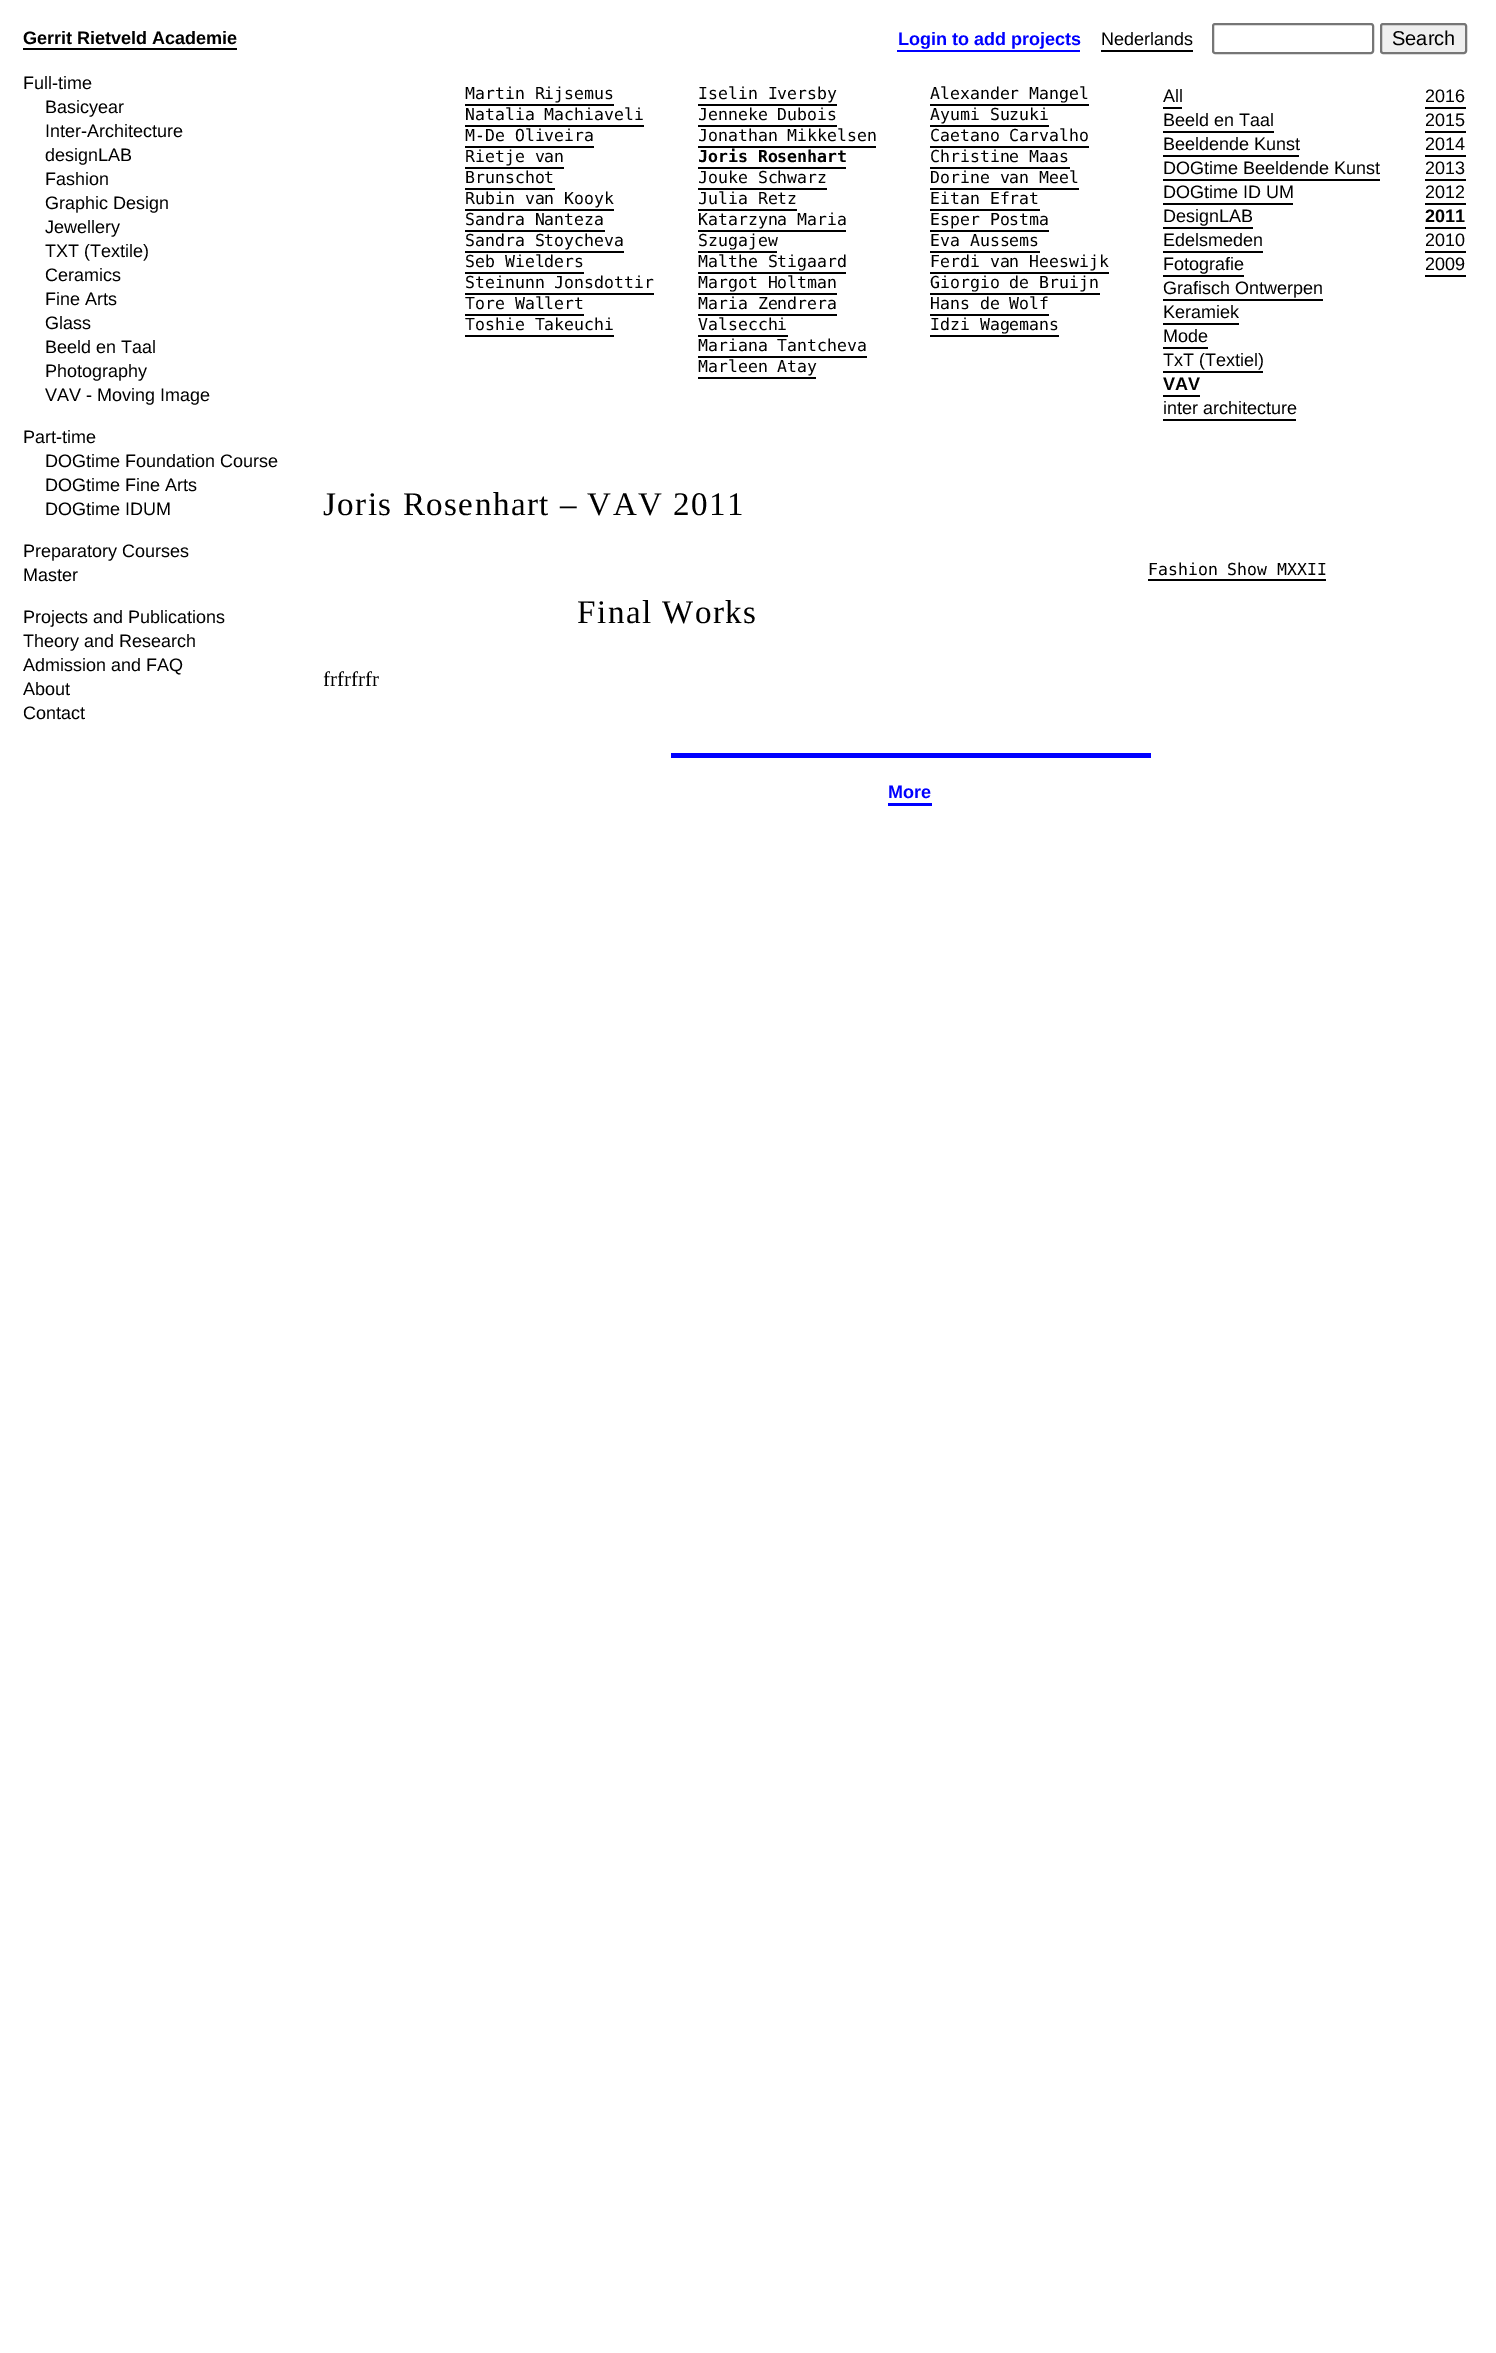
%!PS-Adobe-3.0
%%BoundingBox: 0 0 1496 2353
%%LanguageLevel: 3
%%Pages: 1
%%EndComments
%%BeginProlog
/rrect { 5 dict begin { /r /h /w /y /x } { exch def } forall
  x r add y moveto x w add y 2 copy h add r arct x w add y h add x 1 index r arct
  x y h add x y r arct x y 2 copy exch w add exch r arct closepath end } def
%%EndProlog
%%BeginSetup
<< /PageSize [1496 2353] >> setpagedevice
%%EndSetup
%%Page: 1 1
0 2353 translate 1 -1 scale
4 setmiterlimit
1 setgray
0 0 1496 2353 rectfill
0 setgray
23 48 214 2 rectfill
0 0 1 setrgbcolor
897 50 183 2 rectfill
0 setgray
1101 50 92 2 rectfill
0.463 setgray
2 setlinewidth
1213 24 160 29 2 rrect stroke
0.937 setgray
1381 24 85 29 2 rrect gsave fill grestore
0.463 setgray
stroke
0 setgray
465 104 149 2 rectfill
465 125 179 2 rectfill
465 146 129 2 rectfill
465 167 99 2 rectfill
465 188 90 2 rectfill
465 209 149 2 rectfill
465 230 140 2 rectfill
465 251 159 2 rectfill
465 272 119 2 rectfill
465 293 189 2 rectfill
465 314 119 2 rectfill
465 335 149 2 rectfill
698 104 139 2 rectfill
698 125 139 2 rectfill
698 146 178 2 rectfill
698 167 148 2 rectfill
698 188 129 2 rectfill
698 209 99 2 rectfill
698 230 148 2 rectfill
698 251 79 2 rectfill
698 272 148 2 rectfill
698 293 139 2 rectfill
698 314 139 2 rectfill
698 335 90 2 rectfill
698 356 169 2 rectfill
698 377 118 2 rectfill
930 104 159 2 rectfill
930 125 119 2 rectfill
930 146 159 2 rectfill
930 167 140 2 rectfill
930 188 149 2 rectfill
930 209 110 2 rectfill
930 230 119 2 rectfill
930 251 110 2 rectfill
930 272 179 2 rectfill
930 293 170 2 rectfill
930 314 119 2 rectfill
930 335 129 2 rectfill
1163 107 19 2 rectfill
1163 131 111 2 rectfill
1163 155 136 2 rectfill
1163 179 217 2 rectfill
1163 203 130 2 rectfill
1163 227 90 2 rectfill
1163 251 100 2 rectfill
1163 275 81 2 rectfill
1163 299 160 2 rectfill
1163 323 76 2 rectfill
1163 347 45 2 rectfill
1163 371 100 2 rectfill
1163 395 37 2 rectfill
1163 419 133 2 rectfill
1425 107 41 2 rectfill
1425 131 41 2 rectfill
1425 155 41 2 rectfill
1425 179 41 2 rectfill
1425 203 41 2 rectfill
1425 227 41 2 rectfill
1425 251 41 2 rectfill
1425 275 41 2 rectfill
1148 579 178 2 rectfill
0 0 1 setrgbcolor
671 753 480 5 rectfill
888 803 44 3 rectfill
/LiberationSans-Bold [18 0 0 -18 0 0] selectfont
0 setgray
23 44 moveto (Gerrit Rietveld Academie) show
/LiberationSans-Regular [18 0 0 -18 0 0] selectfont
23 89 moveto (Full-time) show
45 113 moveto (Basicyear) show
45 137 moveto (Inter-Architecture) show
45 161 moveto (designLAB) show
45 185 moveto (Fashion) show
45 209 moveto (Graphic Design) show
45 233 moveto (Jewellery) show
45 257 moveto (TXT \(Textile\)) show
45 281 moveto (Ceramics) show
45 305 moveto (Fine Arts) show
45 329 moveto (Glass) show
45 353 moveto (Beeld en Taal) show
45 377 moveto (Photography) show
45 401 moveto (VAV - Moving Image) show
23 443 moveto (Part-time) show
45 467 moveto (DOGtime Foundation Course) show
45 491 moveto (DOGtime Fine Arts) show
45 515 moveto (DOGtime IDUM) show
23 557 moveto (Preparatory Courses) show
23 581 moveto (Master) show
23 623 moveto (Projects and Publications) show
23 647 moveto (Theory and Research) show
23 671 moveto (Admission and FAQ) show
23 695 moveto (About) show
23 719 moveto (Contact) show
/LiberationSans-Bold [18 0 0 -18 0 0] selectfont
0 0 1 setrgbcolor
898 45 moveto (Login to add projects) show
/LiberationSans-Regular [18 0 0 -18 0 0] selectfont
0 setgray
1101 45 moveto (Nederlands) show
/LiberationSans-Regular [20 0 0 -20 0 0] selectfont
1392 45 moveto (Search) show
/DejaVuSansMono-Regular [16.5 0 0 -16.5 0 0] selectfont
465 99 moveto (Martin Rijsemus) show
465 120 moveto (Natalia Machiaveli) show
465 141 moveto (M-De Oliveira) show
465 162 moveto (Rietje van) show
465 183 moveto (Brunschot) show
465 204 moveto (Rubin van Kooyk) show
465 225 moveto (Sandra Nanteza) show
465 246 moveto (Sandra Stoycheva) show
465 267 moveto (Seb Wielders) show
465 288 moveto (Steinunn Jonsdottir) show
465 309 moveto (Tore Wallert) show
465 330 moveto (Toshie Takeuchi) show
698 99 moveto (Iselin Iversby) show
698 120 moveto (Jenneke Dubois) show
698 141 moveto (Jonathan Mikkelsen) show
/DejaVuSansMono-Bold [16.5 0 0 -16.5 0 0] selectfont
698 162 moveto (Joris Rosenhart) show
/DejaVuSansMono-Regular [16.5 0 0 -16.5 0 0] selectfont
698 183 moveto (Jouke Schwarz) show
698 204 moveto (Julia Retz) show
698 225 moveto (Katarzyna Maria) show
698 246 moveto (Szugajew) show
698 267 moveto (Malthe Stigaard) show
698 288 moveto (Margot Holtman) show
698 309 moveto (Maria Zendrera) show
698 330 moveto (Valsecchi) show
698 351 moveto (Mariana Tantcheva) show
698 372 moveto (Marleen Atay) show
930 99 moveto (Alexander Mangel) show
930 120 moveto (Ayumi Suzuki) show
930 141 moveto (Caetano Carvalho) show
930 162 moveto (Christine Maas) show
930 183 moveto (Dorine van Meel) show
930 204 moveto (Eitan Efrat) show
930 225 moveto (Esper Postma) show
930 246 moveto (Eva Aussems) show
930 267 moveto (Ferdi van Heeswijk) show
930 288 moveto (Giorgio de Bruijn) show
930 309 moveto (Hans de Wolf) show
930 330 moveto (Idzi Wagemans) show
/LiberationSans-Regular [18 0 0 -18 0 0] selectfont
1163 102 moveto (All) show
1163 126 moveto (Beeld en Taal) show
1163 150 moveto (Beeldende Kunst) show
1163 174 moveto (DOGtime Beeldende Kunst) show
1163 198 moveto (DOGtime ID UM) show
1163 222 moveto (DesignLAB) show
1163 246 moveto (Edelsmeden) show
1163 270 moveto (Fotografie) show
1163 294 moveto (Grafisch Ontwerpen) show
1163 318 moveto (Keramiek) show
1163 342 moveto (Mode) show
1163 366 moveto (TxT \(Textiel\)) show
/LiberationSans-Bold [18 0 0 -18 0 0] selectfont
1163 390 moveto (VAV) show
/LiberationSans-Regular [18 0 0 -18 0 0] selectfont
1163 414 moveto (inter architecture) show
1425 102 moveto (2016) show
1425 126 moveto (2015) show
1425 150 moveto (2014) show
1425 174 moveto (2013) show
1425 198 moveto (2012) show
/LiberationSans-Bold [18 0 0 -18 0 0] selectfont
1425 222 moveto (2011) show
/LiberationSans-Regular [18 0 0 -18 0 0] selectfont
1425 246 moveto (2010) show
1425 270 moveto (2009) show
/LiberationSerif-Regular [33 0 0 -33 0 0] selectfont
323 515 moveto 1.5 0 (Joris Rosenhart – VAV 2011) ashow
/DejaVuSansMono-Regular [16.5 0 0 -16.5 0 0] selectfont
1148 575 moveto (Fashion Show MXXII) show
/LiberationSerif-Regular [33 0 0 -33 0 0] selectfont
577 623 moveto 1.5 0 (Final Works) ashow
/LiberationSerif-Regular [21 0 0 -21 0 0] selectfont
323 686 moveto (frfrfrfr) show
/LiberationSans-Bold [18 0 0 -18 0 0] selectfont
0 0 1 setrgbcolor
888 798 moveto (More) show
showpage
%%EOF
